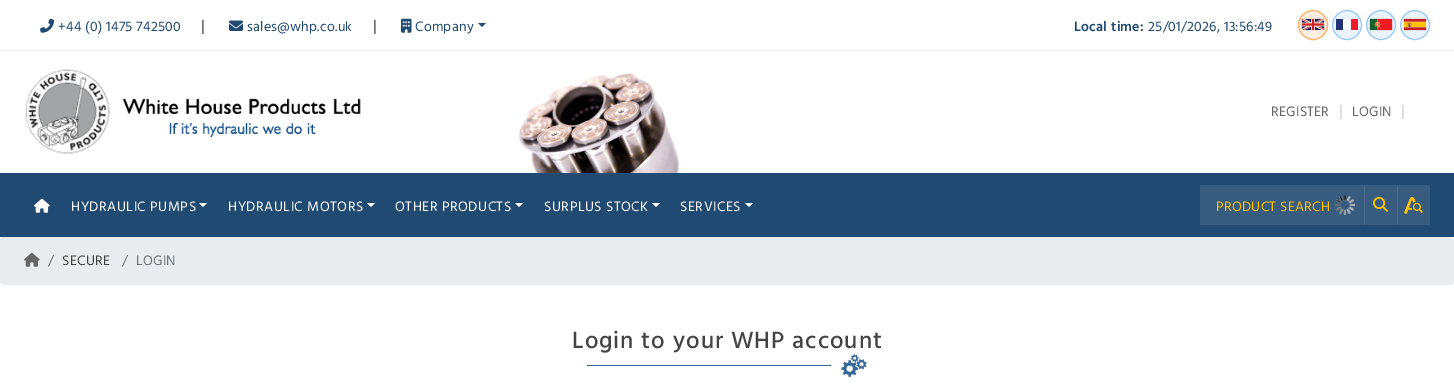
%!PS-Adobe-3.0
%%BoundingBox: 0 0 1454 391
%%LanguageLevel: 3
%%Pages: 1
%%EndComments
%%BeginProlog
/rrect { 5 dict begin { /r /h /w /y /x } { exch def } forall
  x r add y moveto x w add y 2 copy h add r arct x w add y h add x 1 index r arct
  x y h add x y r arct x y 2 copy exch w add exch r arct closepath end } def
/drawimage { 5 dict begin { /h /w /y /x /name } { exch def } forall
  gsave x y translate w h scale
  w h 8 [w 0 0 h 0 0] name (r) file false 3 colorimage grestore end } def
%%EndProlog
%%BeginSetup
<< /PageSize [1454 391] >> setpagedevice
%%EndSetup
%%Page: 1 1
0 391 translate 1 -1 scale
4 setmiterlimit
1 setgray
0 0 1454 391 rectfill
0.933 setgray
0 50 1454 1 rectfill
(images/1.raw) 40 18 14 15 drawimage
(images/2.raw) 229 20 14 11 drawimage
(images/3.raw) 401 18 11 15 drawimage
0.129 0.29 0.447 setrgbcolor
newpath 478 23 moveto 486 23 lineto 482 27 lineto closepath fill
1 0.937 0.878 setrgbcolor
newpath 1313 25 14.5 0 360 arc closepath gsave fill grestore
1 0.678 0.396 setrgbcolor
stroke
(images/4.raw) 1301 18 24 13 drawimage
0.918 0.957 1 setrgbcolor
newpath 1347 25 14.5 0 360 arc closepath gsave fill grestore
0.588 0.784 1 setrgbcolor
stroke
0.137 0.192 0.475 setrgbcolor
1336 19 7 11 rectfill
1 setgray
1343 19 8 11 rectfill
0.929 0.11 0.157 setrgbcolor
1351 19 7 11 rectfill
0.918 0.957 1 setrgbcolor
newpath 1381 25 14.5 0 360 arc closepath gsave fill grestore
0.588 0.784 1 setrgbcolor
stroke
(images/5.raw) 1369 18 24 13 drawimage
0.918 0.957 1 setrgbcolor
newpath 1415 25 14.5 0 360 arc closepath gsave fill grestore
0.588 0.784 1 setrgbcolor
stroke
(images/6.raw) 1403 18 24 13 drawimage
(images/7.raw) 25 69 85 85 drawimage
(images/8.raw) 122 98 239 40 drawimage
(images/9.raw) 519 73 161 100 drawimage
0.129 0.29 0.447 setrgbcolor
0 173 1454 64 rectfill
(images/10.raw) 34 198 16 15 drawimage
1 setgray
newpath 199 203 moveto 207 203 lineto 203 207 lineto closepath fill
newpath 367 203 moveto 375 203 lineto 371 207 lineto closepath fill
newpath 515 203 moveto 523 203 lineto 519 207 lineto closepath fill
newpath 652 203 moveto 660 203 lineto 656 207 lineto closepath fill
newpath 745 203 moveto 753 203 lineto 749 207 lineto closepath fill
0.216 0.361 0.502 setrgbcolor
1200 185 230 40 rectfill
(images/11.raw) 1335 195 20 20 drawimage
0.294 0.424 0.553 setrgbcolor
newpath 1364 225 moveto 1364 185 lineto 1365 186 lineto 1365 224 lineto closepath fill
(images/12.raw) 1373 196 15 16 drawimage
newpath 1397 225 moveto 1397 185 lineto 1398 186 lineto 1398 224 lineto closepath fill
(images/13.raw) 1404 197 19 18 drawimage
0.914 0.925 0.937 setrgbcolor
0 237 1454 48 4 rrect fill
(images/14.raw) 24 252 16 15 drawimage
0.208 0.408 0.6 setrgbcolor
587 365 244 1 rectfill
(images/15.raw) 841 354 26 24 drawimage
/HindVadodara-Regular [14 0 0 -14 0 0] selectfont
0.129 0.29 0.447 setrgbcolor
58 31 moveto 0.25 0 (+44 \(0\) 1475 742500) ashow
/HindVadodara-Regular [16 0 0 -16 0 0] selectfont
0.267 setgray
201 31 moveto 0.25 0 (|) ashow
/HindVadodara-Regular [14 0 0 -14 0 0] selectfont
0.129 0.29 0.447 setrgbcolor
247 31 moveto 0.25 0 (sales@whp.co.uk) ashow
/HindVadodara-Regular [16 0 0 -16 0 0] selectfont
0.267 setgray
373 31 moveto 0.25 0 (|) ashow
/HindVadodara-Regular [14 0 0 -14 0 0] selectfont
0.129 0.29 0.447 setrgbcolor
415 31 moveto 0.25 0 (Company) ashow
/HindVadodara-SemiBold [14 0 0 -14 0 0] selectfont
1074 31 moveto 0.25 0 (Local time:) ashow
/HindVadodara-Regular [14 0 0 -14 0 0] selectfont
1148 31 moveto 0.25 0 (25/01/2026, 13:56:49) ashow
0.4 setgray
1271 116 moveto 0.25 0 (REGISTER) ashow
/HindVadodara-Regular [16 0 0 -16 0 0] selectfont
0.8 setgray
1339 116 moveto 0.25 0 (|) ashow
/HindVadodara-Regular [14 0 0 -14 0 0] selectfont
0.4 setgray
1352 116 moveto 0.25 0 (LOGIN) ashow
/HindVadodara-Regular [16 0 0 -16 0 0] selectfont
0.8 setgray
1401 116 moveto 0.25 0 (|) ashow
/HindVadodara-Regular [14 0 0 -14 0 0] selectfont
1 setgray
71 211 moveto 0.5 0 (HYDRAULIC PUMPS) ashow
228 211 moveto 0.5 0 (HYDRAULIC MOTORS) ashow
395 211 moveto 0.5 0 (OTHER PRODUCTS) ashow
544 211 moveto 0.5 0 (SURPLUS STOCK) ashow
680 211 moveto 0.5 0 (SERVICES) ashow
1 0.753 0 setrgbcolor
1216 211 moveto 0.25 0 (PRODUCT SEARCH) ashow
0.424 0.459 0.49 setrgbcolor
48 265 moveto 0.25 0 (/) ashow
0.267 setgray
62 265 moveto 0.25 0 (SECURE) ashow
0.424 0.459 0.49 setrgbcolor
122 265 moveto 0.25 0 (/) ashow
136 265 moveto 0.25 0 (LOGIN) ashow
/HindVadodara-Medium [24 0 0 -24 0 0] selectfont
0.267 setgray
572 348 moveto 1 0 (Login to your WHP account) ashow
showpage
%%EOF
